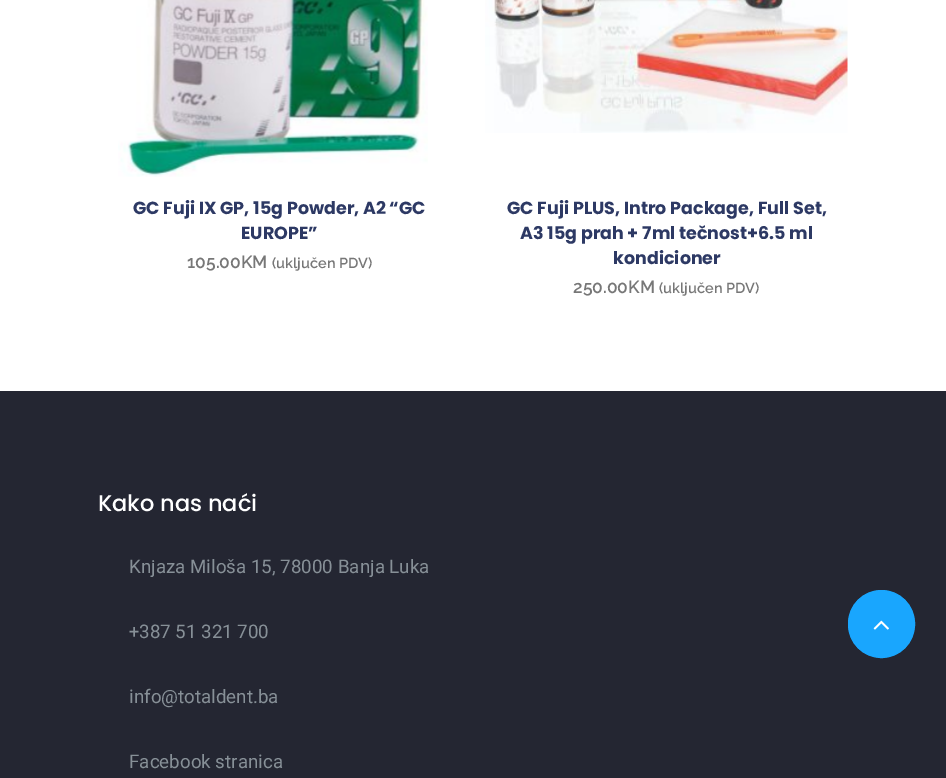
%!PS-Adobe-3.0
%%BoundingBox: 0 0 946 778
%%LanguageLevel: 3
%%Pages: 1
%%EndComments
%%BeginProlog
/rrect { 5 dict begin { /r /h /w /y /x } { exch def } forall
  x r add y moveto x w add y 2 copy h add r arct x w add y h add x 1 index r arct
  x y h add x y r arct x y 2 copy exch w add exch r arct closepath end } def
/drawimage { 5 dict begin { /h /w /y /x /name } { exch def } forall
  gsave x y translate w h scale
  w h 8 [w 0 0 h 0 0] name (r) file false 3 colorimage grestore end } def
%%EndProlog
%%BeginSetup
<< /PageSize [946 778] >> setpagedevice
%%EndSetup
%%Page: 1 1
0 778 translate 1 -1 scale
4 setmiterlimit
1 setgray
0 0 946 778 rectfill
(images/1.raw) 118 0 310 177 drawimage
(images/2.raw) 485 0 363 133 drawimage
0.141 0.149 0.196 setrgbcolor
0 391 946 387 rectfill
0.098 0.651 0.996 setrgbcolor
848.5 590.5 66 67 33 rrect gsave fill grestore
stroke
(images/3.raw) 873 620 16 10 drawimage
/Poppins-Bold [17.5 0 0 -17.5 0 0] selectfont
0.176 0.224 0.392 setrgbcolor
133 214 moveto (GC Fuji IX GP, 15g Powder, A2 “GC) show
241 239 moveto (EUROPE”) show
/Raleway-SemiBold [17.5 0 0 -17.5 0 0] selectfont
0.467 setgray
187 268 moveto (105.00KM) show
/Raleway-SemiBold [14.5 0 0 -14.5 0 0] selectfont
272 268 moveto (\(uključen PDV\)) show
/Poppins-Bold [17.5 0 0 -17.5 0 0] selectfont
0.176 0.224 0.392 setrgbcolor
507 214 moveto (GC Fuji PLUS, Intro Package, Full Set,) show
520 239 moveto (A3 15g prah + 7ml tečnost+6.5 ml) show
613 264 moveto (kondicioner) show
/Raleway-SemiBold [17.5 0 0 -17.5 0 0] selectfont
0.467 setgray
573 293 moveto (250.00KM) show
/Raleway-SemiBold [14.5 0 0 -14.5 0 0] selectfont
659 293 moveto (\(uključen PDV\)) show
/Poppins-Medium [22.5 0 0 -22.5 0 0] selectfont
1 setgray
98 511 moveto (Kako nas naći) show
/Heebo-Regular [18.75 0 0 -18.75 0 0] selectfont
0.529 0.565 0.592 setrgbcolor
129 573 moveto (Knjaza Miloša 15, 78000 Banja Luka) show
129 638 moveto (+387 51 321 700) show
129 703 moveto (info@totaldent.ba) show
129 768 moveto (Facebook stranica) show
showpage
%%EOF
